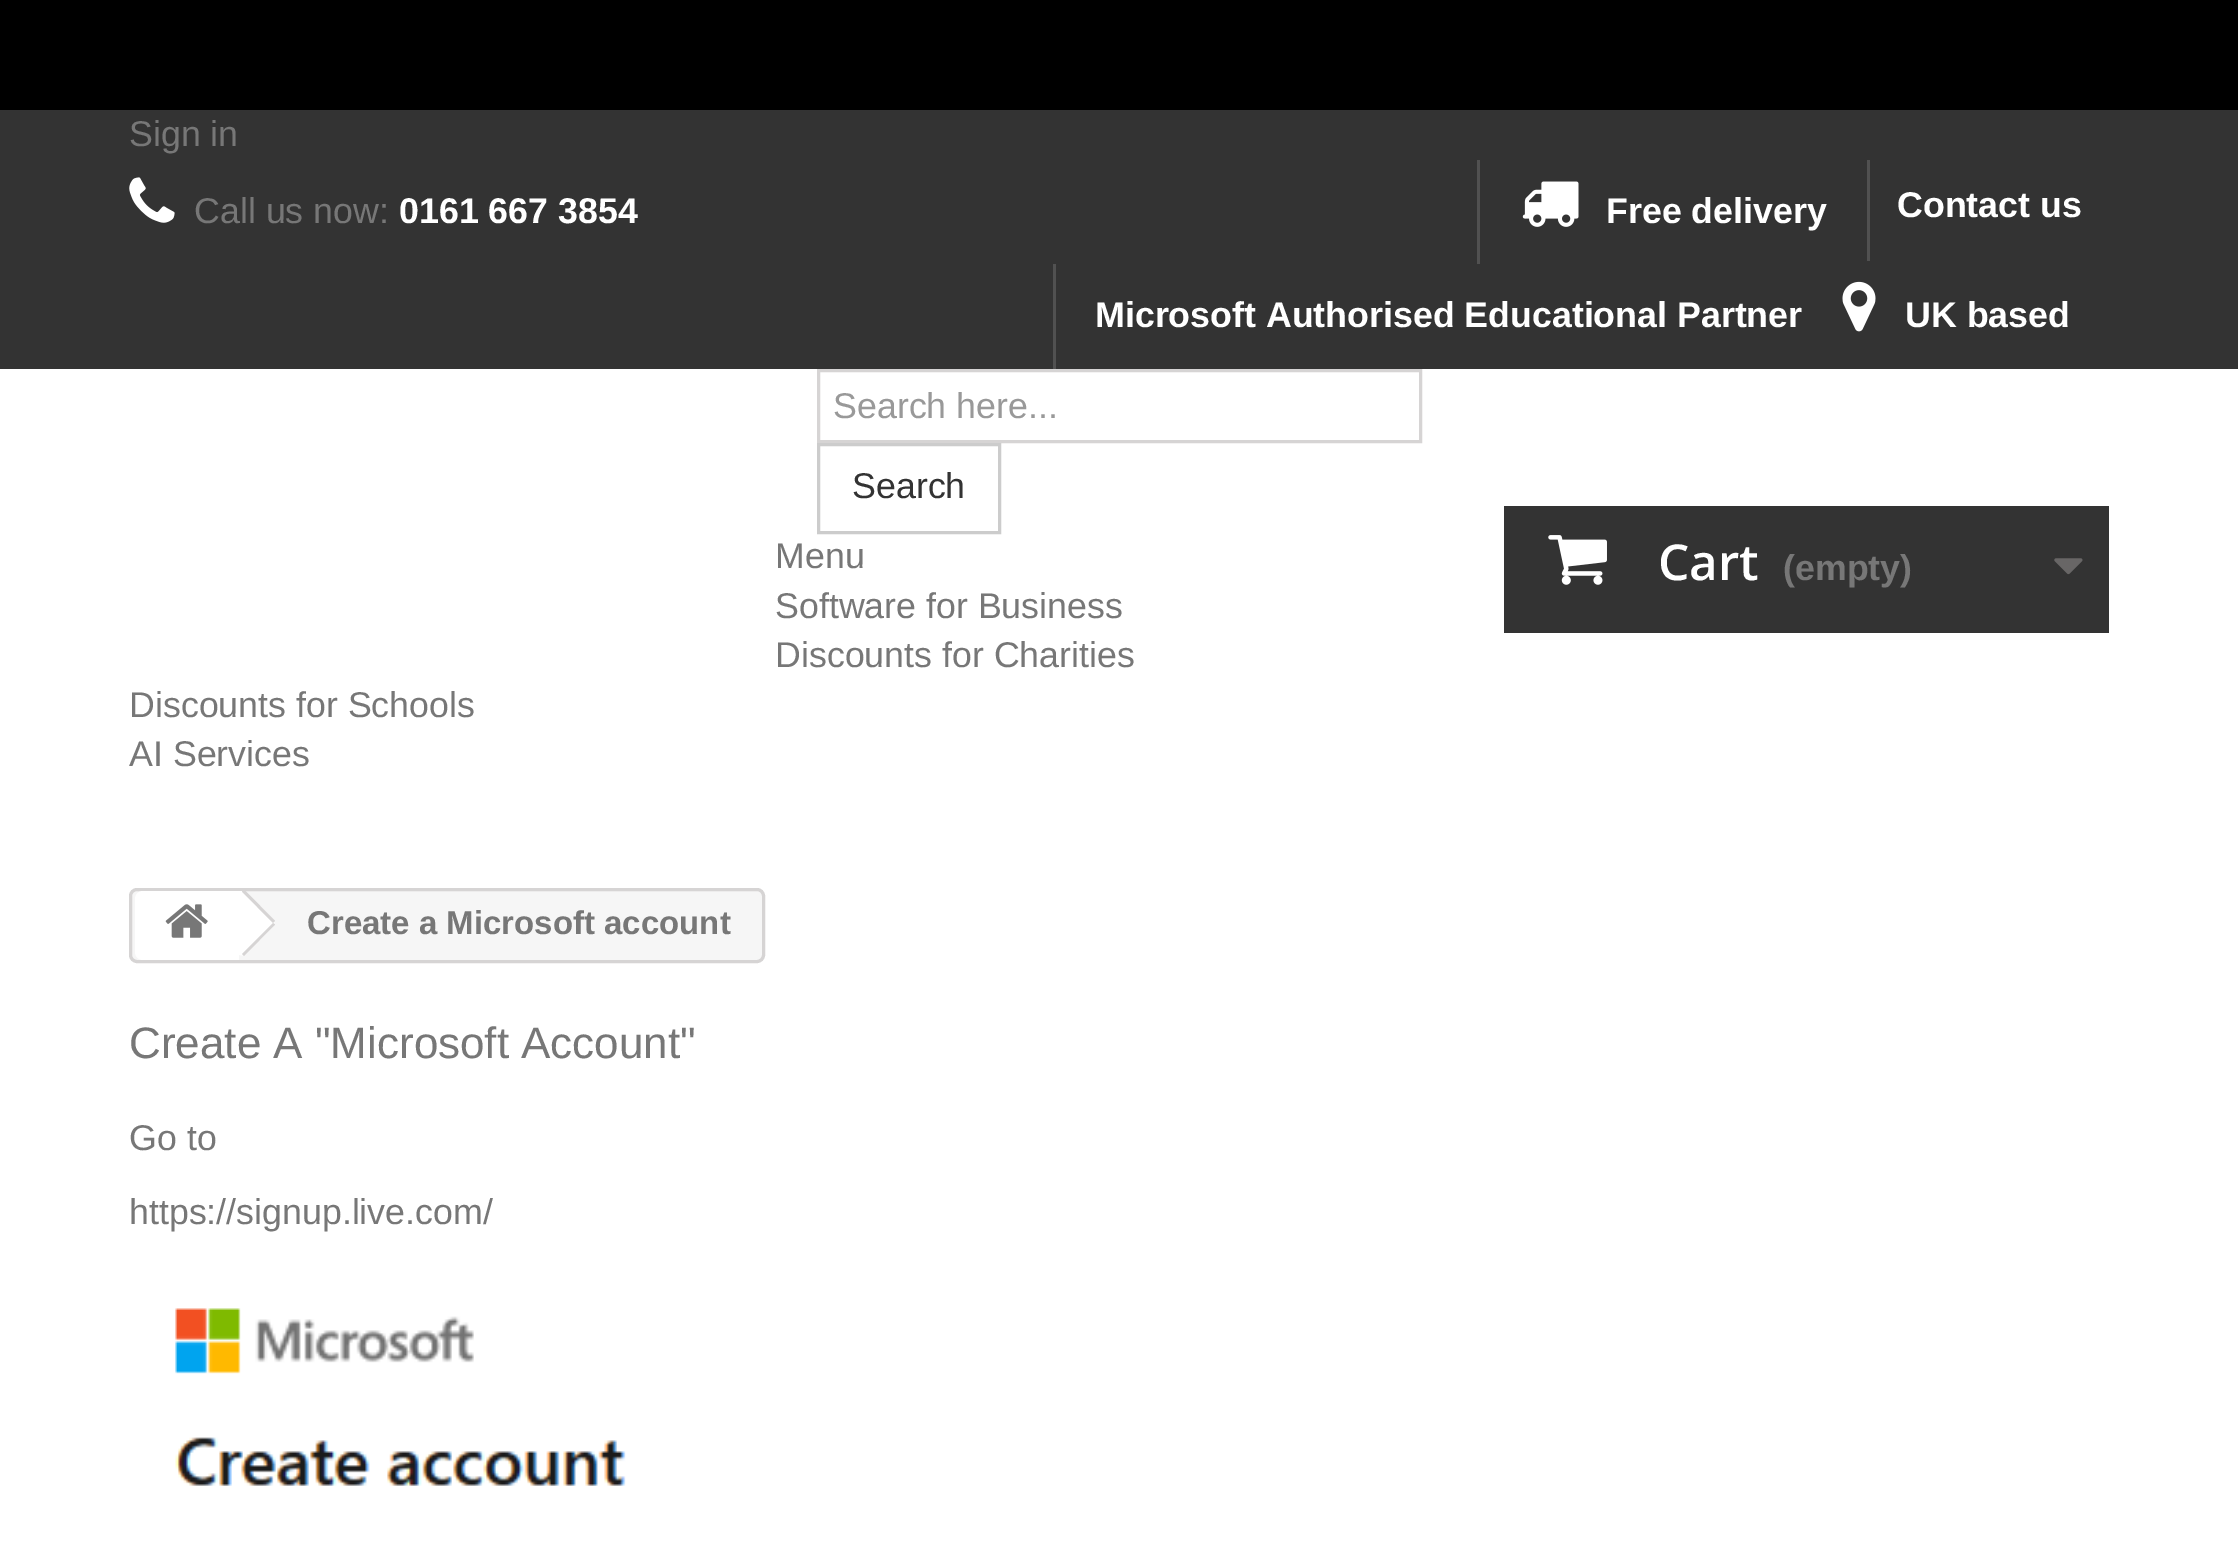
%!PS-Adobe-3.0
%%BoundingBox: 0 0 2238 1564
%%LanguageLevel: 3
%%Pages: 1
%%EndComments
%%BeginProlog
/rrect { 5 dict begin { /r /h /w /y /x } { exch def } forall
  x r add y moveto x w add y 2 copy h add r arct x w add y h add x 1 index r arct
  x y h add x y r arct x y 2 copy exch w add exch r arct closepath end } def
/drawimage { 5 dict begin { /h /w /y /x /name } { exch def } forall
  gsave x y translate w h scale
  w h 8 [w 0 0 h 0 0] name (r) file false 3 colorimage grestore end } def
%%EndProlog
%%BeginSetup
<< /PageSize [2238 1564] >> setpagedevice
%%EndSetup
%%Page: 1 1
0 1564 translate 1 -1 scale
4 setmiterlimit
1 setgray
0 0 2238 1564 rectfill
0 setgray
0 0 2238 110 rectfill
0.2 setgray
0 110 2238 259 rectfill
(images/1.raw) 129 177 46 46 drawimage
0.318 setgray
1477 160 3 104 rectfill
(images/2.raw) 1522 181 57 46 drawimage
1867 160 3 101 rectfill
1053 264 3 105 rectfill
(images/3.raw) 1842 281 34 51 drawimage
0.839 0.831 0.831 setrgbcolor
3 setlinewidth
818.5 370.5 602 71 rectstroke
0.8 setgray
818.5 444.5 181 88 rectstroke
0.2 setgray
1504 506 605 127 rectfill
(images/4.raw) 1548 535 59 50 drawimage
(images/5.raw) 2054 558 29 17 drawimage
0.965 setgray
130.5 889.5 633 72 6.5 rrect gsave fill grestore
0.839 0.831 0.831 setrgbcolor
stroke
1 setgray
newpath 143 891 moveto 239 891 lineto 239 960 lineto 143 960 lineto 138.5 960 135 956.5 135 952 curveto 135 899 lineto 135 894.5 138.5 891 143 891 curveto closepath fill
(images/6.raw) 165 904 43 34 drawimage
newpath 246 892 moveto 245 891 lineto 239 891 lineto 238 892 lineto 211 919 lineto 209 921 209 925 211 927 curveto 238 954 lineto 240 956 244 956 246 954 curveto 273 927 lineto 275 925 275 921 273 919 curveto closepath fill
0.839 0.831 0.831 setrgbcolor
newpath 245.5 891 moveto 275 921 lineto 273 923 lineto 242 891.5 lineto 242.5 891 lineto closepath fill
newpath 273 923 moveto 275 924.5 lineto 244 956 lineto 242 954 lineto closepath fill
(images/7.raw) 175 1308 451 178 drawimage
/LiberationSans-Regular [35.75 0 0 -35.75 0 0] selectfont
0.467 setgray
129 146 moveto (Sign in) show
194 223 moveto (Call us now:) show
/LiberationSans-Bold [35.75 0 0 -35.75 0 0] selectfont
1 setgray
399 223 moveto (0161 667 3854) show
1606 223 moveto (Free delivery) show
1897 217 moveto (Contact us) show
1095 327 moveto (Microsoft Authorised Educational Partner) show
1905 327 moveto (UK based) show
/LiberationSans-Regular [35.75 0 0 -35.75 0 0] selectfont
0.6 setgray
833 418 moveto (Search here...) show
0.2 setgray
852 498 moveto (Search) show
0.467 setgray
775 568 moveto (Menu) show
775 618 moveto (Software for Business) show
775 667 moveto (Discounts for Charities) show
129 717 moveto (Discounts for Schools) show
129 766 moveto (AI Services) show
/OpenSans-SemiBold [49.5 0 0 -49.5 0 0] selectfont
1 setgray
1658 580 moveto (Cart) show
/LiberationSans-Bold [35.75 0 0 -35.75 0 0] selectfont
0.467 setgray
1783 580 moveto (\(empty\)) show
/LiberationSans-Bold [33 0 0 -33 0 0] selectfont
307 934 moveto (Create a Microsoft account) show
/LiberationSans-Regular [44 0 0 -44 0 0] selectfont
129 1058 moveto (Create A "Microsoft Account") show
/LiberationSans-Regular [35.75 0 0 -35.75 0 0] selectfont
129 1150 moveto (Go to) show
129 1224 moveto (https://signup.live.com/) show
showpage
%%EOF
